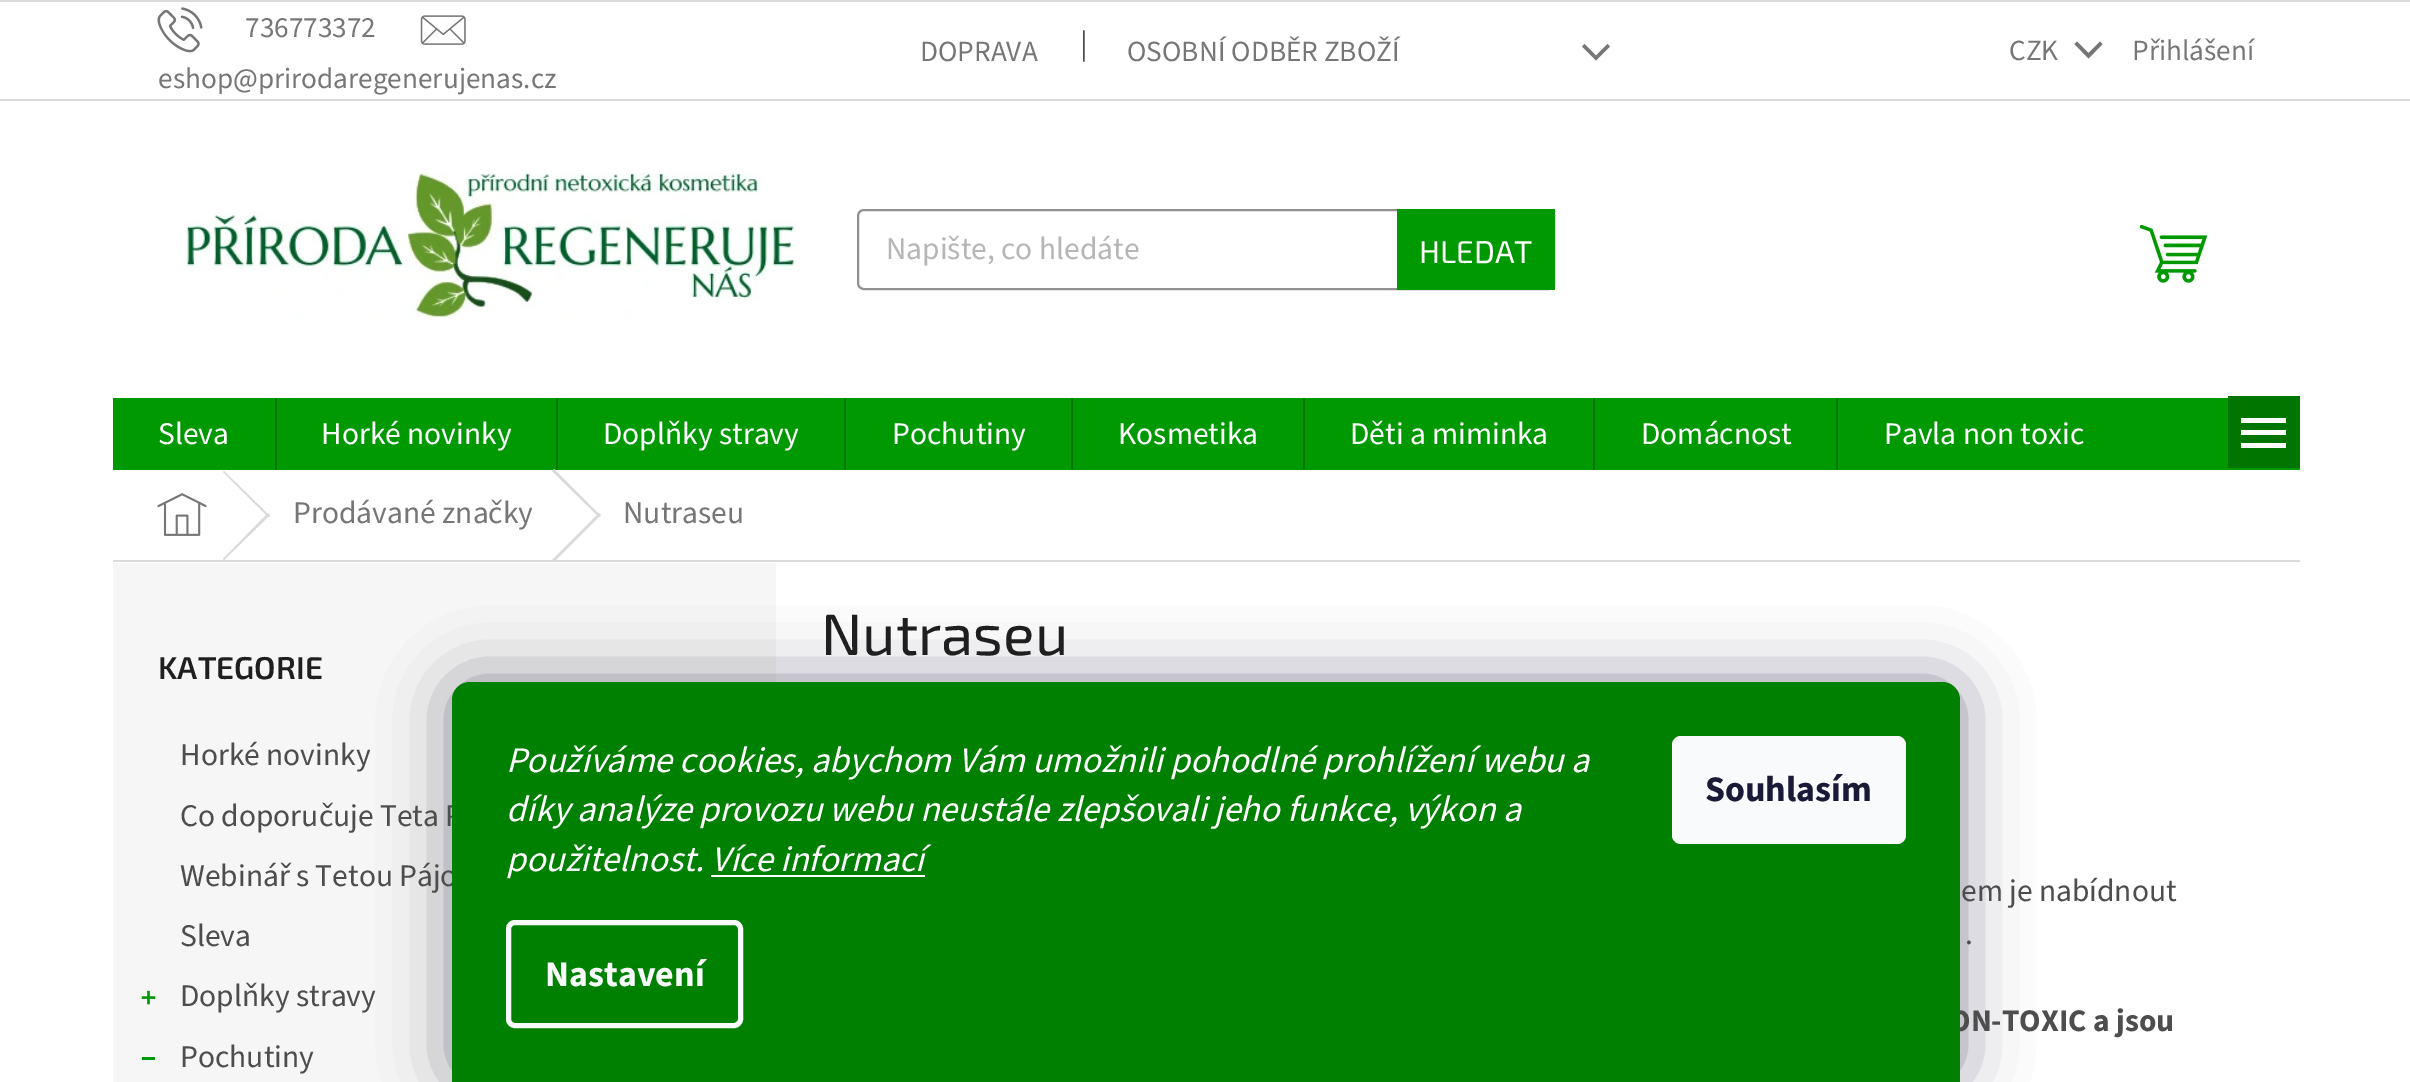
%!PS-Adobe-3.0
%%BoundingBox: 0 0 2410 1082
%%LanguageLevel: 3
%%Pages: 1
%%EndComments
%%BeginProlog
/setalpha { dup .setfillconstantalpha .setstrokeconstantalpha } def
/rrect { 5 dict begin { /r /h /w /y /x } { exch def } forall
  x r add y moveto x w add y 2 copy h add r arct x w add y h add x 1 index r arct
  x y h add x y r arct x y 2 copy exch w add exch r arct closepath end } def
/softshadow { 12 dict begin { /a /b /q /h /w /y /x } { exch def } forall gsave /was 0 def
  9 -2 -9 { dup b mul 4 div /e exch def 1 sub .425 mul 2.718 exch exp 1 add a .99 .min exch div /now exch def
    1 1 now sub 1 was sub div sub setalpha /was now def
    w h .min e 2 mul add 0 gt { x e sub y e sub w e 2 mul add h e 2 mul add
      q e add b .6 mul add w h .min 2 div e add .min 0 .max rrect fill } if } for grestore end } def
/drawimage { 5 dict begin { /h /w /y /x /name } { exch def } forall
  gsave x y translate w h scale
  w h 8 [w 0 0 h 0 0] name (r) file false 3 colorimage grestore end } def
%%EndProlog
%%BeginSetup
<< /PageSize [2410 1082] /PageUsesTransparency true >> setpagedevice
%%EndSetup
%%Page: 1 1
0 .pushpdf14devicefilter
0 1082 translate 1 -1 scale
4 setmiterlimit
1 setgray
0 0 2410 1082 rectfill
0.855 setgray
0 0 2410 2 rectfill
0 99 2410 2 rectfill
(images/1.raw) 157 7 46 46 drawimage
(images/2.raw) 420 15 46 30 drawimage
0.463 setgray
newpath 1582 46.5 moveto 1584.5 44 lineto 1596 55.5 lineto 1607.5 44 lineto 1610 46.5 lineto 1596 60.5 lineto closepath fill
newpath 2074.5 44 moveto 2077 41.5 lineto 2088.5 53 lineto 2100 41.5 lineto 2102.5 44 lineto 2088.5 58.5 lineto closepath fill
(images/3.raw) 186 172 611 147 drawimage
0.569 setgray
2 setlinewidth
858 210 696 79 6 rrect stroke
0 0.6 0.004 setrgbcolor
1397 209 158 81 rectfill
(images/4.raw) 2139 224 69 59 drawimage
113 398 2187 72 rectfill
0 0.459 0 setrgbcolor
275 398 2 72 rectfill
556 398 2 72 rectfill
844 398 2 72 rectfill
1071 398 2 72 rectfill
1303 398 2 72 rectfill
1593 398 2 72 rectfill
1836 398 2 72 rectfill
2228 396 72 72 rectfill
1 setgray
newpath 2241 448 moveto 2286 448 lineto 2286 443 lineto 2241 443 lineto closepath 2241 435 moveto 2286 435 lineto 2286 430 lineto 2241 430 lineto closepath 2241 418 moveto 2241 423 lineto 2286 423 lineto 2286 418 lineto closepath fill
0.855 setgray
113 560 2187 2 rectfill
(images/5.raw) 157 493 50 43 drawimage
newpath 223 472 moveto 224 471 lineto 270 516 lineto 268 517 lineto closepath fill
newpath 268 513 moveto 270 515 lineto 224 560 lineto 223 559 lineto closepath fill
newpath 552 471 moveto 554 469 lineto 601 516 lineto 599 517 lineto closepath fill
newpath 599 513 moveto 601 515 lineto 554 562 lineto 552 560 lineto closepath fill
0.965 setgray
113 563 663 519 rectfill
(images/6.raw) 141 990 15 15 drawimage
0 0.6 0.004 setrgbcolor
142 1057 13 3 rectfill
0.106 0.098 0.224 setrgbcolor
452 682 1508 400 18 34 0.5 softshadow
/SourceSans3-Regular [29.25 0 0 -29.25 0 0] selectfont
0.463 setgray
245 37 moveto (736773372) show
158 88 moveto (eshop@prirodaregenerujenas.cz) show
920 61 moveto (DOPRAVA) show
/SourceSans3-Regular [31.5 0 0 -31.5 0 0] selectfont
0.302 setgray
1080 54 moveto (|) show
/SourceSans3-Regular [29.25 0 0 -29.25 0 0] selectfont
0.463 setgray
1127 61 moveto (OSOBNÍ ODBĚR ZBOŽÍ) show
2009 60 moveto (CZK) show
2132 60 moveto (Přihlášení) show
/SourceSans3-Regular [31.5 0 0 -31.5 0 0] selectfont
0.714 setgray
886 259 moveto (Napište, co hledáte) show
/Exo2-Regular [31.5 0 0 -31.5 0 0] selectfont
1 setgray
1419 263 moveto (HLEDAT) show
/SourceSans3-Regular [31.5 0 0 -31.5 0 0] selectfont
158 444 moveto (Sleva) show
321 444 moveto (Horké novinky) show
603 444 moveto (Doplňky stravy) show
892 444 moveto (Pochutiny) show
1118 444 moveto (Kosmetika) show
1350 444 moveto (Děti a miminka) show
1641 444 moveto (Domácnost) show
1884 444 moveto (Pavla non toxic) show
0.463 setgray
293 523 moveto (Prodávané značky) show
623 523 moveto (Nutraseu) show
/Exo2-SemiBold [31.5 0 0 -31.5 0 0] selectfont
0.122 setgray
158 679 moveto (KATEGORIE) show
/SourceSans3-Regular [31.5 0 0 -31.5 0 0] selectfont
0.302 setgray
180 765 moveto (Horké novinky) show
180 826 moveto (Co doporučuje Teta P) show
180 886 moveto (Webinář s Tetou Pájo) show
180 946 moveto (Sleva) show
180 1006 moveto (Doplňky stravy) show
180 1067 moveto (Pochutiny) show
/Exo2-Regular [58.5 0 0 -58.5 0 0] selectfont
0.122 setgray
821 655 moveto (Nutraseu) show
/SourceSans3-Regular [31.5 0 0 -31.5 0 0] selectfont
0.302 setgray
1961 901 moveto (em je nabídnout) show
1965 944 moveto (.) show
/SourceSans3-Bold [31.5 0 0 -31.5 0 0] selectfont
1949 1031 moveto (ON-TOXIC a jsou) show
0 0.502 0 setrgbcolor
newpath 470 682 moveto 1942 682 lineto 1952 682 1960 690 1960 700 curveto 1960 1082 lineto 452 1082 lineto 452 700 lineto 452 690 460 682 470 682 curveto closepath fill
/SourceSans3-Italic [36 0 0 -36 0 0] selectfont
1 setgray
506 772 moveto (Používáme cookies, abychom Vám umožnili pohodlné prohlížení webu a) show
506 821 moveto (díky analýze provozu webu neustále zlepšovali jeho funkce, výkon a) show
506 871 moveto (použitelnost. Více informací) show
711 875 214 2 rectfill
0.973 0.98 0.984 setrgbcolor
5 setlinewidth
508.5 922.5 232 103 6.5 rrect stroke
/SourceSans3-Bold [36 0 0 -36 0 0] selectfont
545 986 moveto (Nastavení) show
1672 736 234 108 9 rrect fill
0.102 0.098 0.216 setrgbcolor
1705 801 moveto (Souhlasím) show
.poppdf14devicefilter showpage
%%EOF
